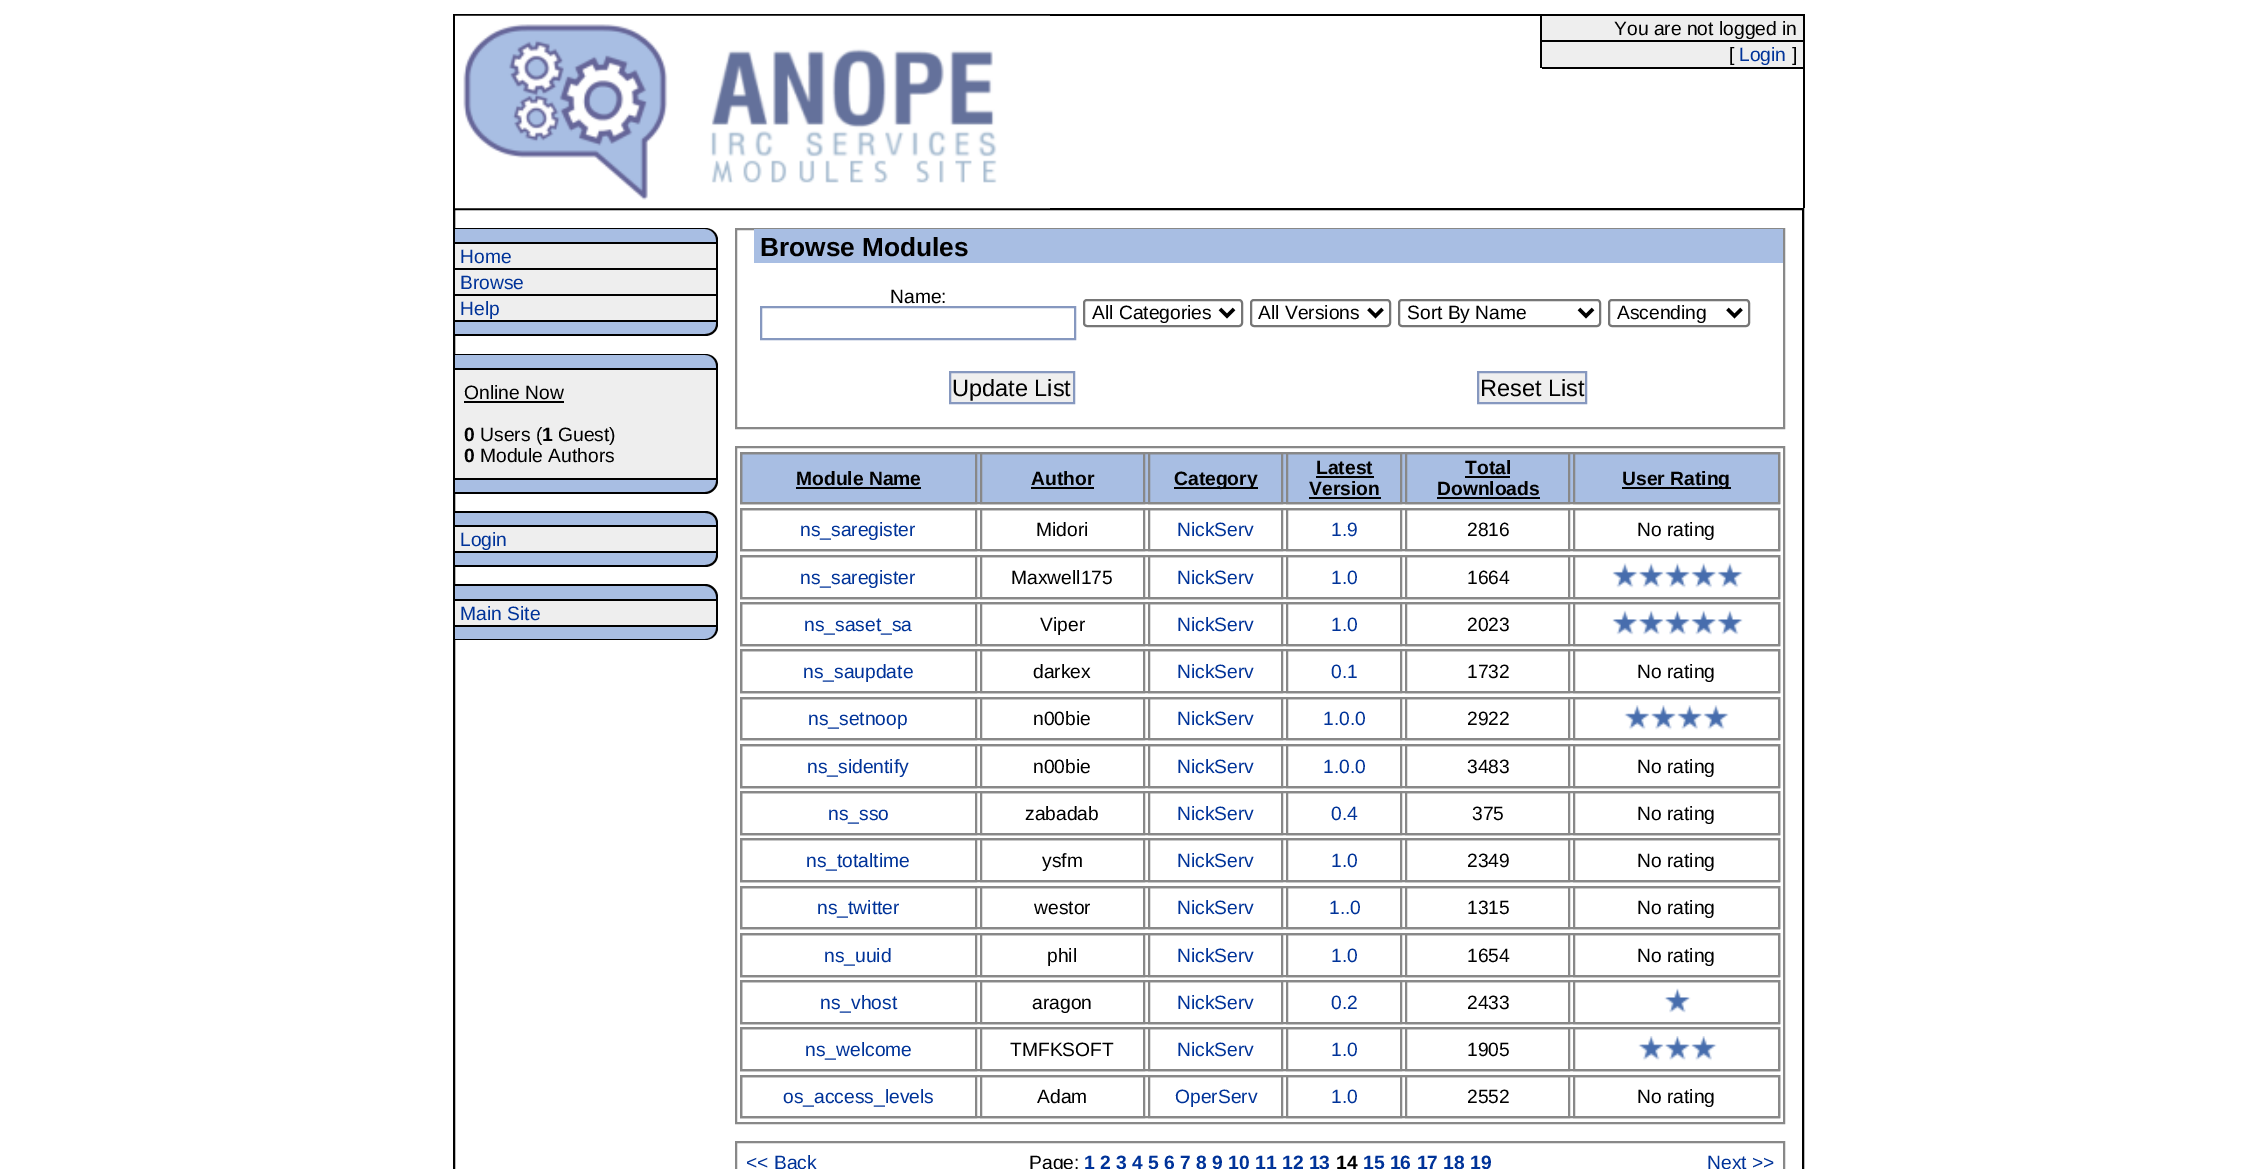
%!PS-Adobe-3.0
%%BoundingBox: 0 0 2257 1169
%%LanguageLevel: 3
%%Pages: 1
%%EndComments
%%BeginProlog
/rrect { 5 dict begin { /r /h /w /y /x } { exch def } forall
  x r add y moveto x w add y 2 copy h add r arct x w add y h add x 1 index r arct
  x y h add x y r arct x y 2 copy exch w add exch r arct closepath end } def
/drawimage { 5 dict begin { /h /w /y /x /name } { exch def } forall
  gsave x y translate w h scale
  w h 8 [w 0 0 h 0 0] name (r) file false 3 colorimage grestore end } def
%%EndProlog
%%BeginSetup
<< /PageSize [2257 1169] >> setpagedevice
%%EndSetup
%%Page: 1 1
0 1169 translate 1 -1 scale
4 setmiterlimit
1 setgray
0 0 2257 1169 rectfill
0 setgray
453 14 1351 2 rectfill
1803 14 2 194 rectfill
453 14 2 194 rectfill
2 setlinewidth
454 209 1349 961 rectstroke
(images/1.raw) 455 15 595 194 drawimage
0.933 setgray
1542 16 261 51 rectfill
0 setgray
1540 16 2 52 rectfill
1542 40 261 2 rectfill
1542 67 261 2 rectfill
0.659 0.745 0.89 setrgbcolor
newpath 455 229 moveto 705 229 lineto 711 229 716 234 716 240 curveto 716 323 lineto 716 329 711 334 705 334 curveto 455 334 lineto closepath fill
0 setgray
newpath 455 228 moveto 705 228 lineto 712 228 718 233 718 240 curveto 718 324 lineto 718 331 712 336 705 336 curveto 455 336 lineto closepath 455 229 moveto 705 229 lineto 711 229 716 234 716 240 curveto 716 324 lineto 716 330 711 334 705 334 curveto 455 334 lineto closepath eofill
0.933 setgray
455 244 261 24 rectfill
0 setgray
455 242 261 2 rectfill
455 268 261 2 rectfill
0.933 setgray
455 270 261 24 rectfill
0 setgray
455 294 261 2 rectfill
0.933 setgray
455 296 261 24 rectfill
0 setgray
455 320 261 2 rectfill
0.659 0.745 0.89 setrgbcolor
newpath 455 355 moveto 705 355 lineto 711 355 716 360 716 366 curveto 716 481 lineto 716 487 711 492 705 492 curveto 455 492 lineto closepath fill
0 setgray
newpath 455 354 moveto 705 354 lineto 712 354 718 359 718 366 curveto 718 481 lineto 718 488 712 494 705 494 curveto 455 494 lineto closepath 455 355 moveto 705 355 lineto 711 355 716 360 716 366 curveto 716 481 lineto 716 487 711 492 705 492 curveto 455 492 lineto closepath eofill
0.933 setgray
455 370 261 108 rectfill
0 setgray
455 368 261 2 rectfill
455 478 261 2 rectfill
464 401 100 2 rectfill
0.659 0.745 0.89 setrgbcolor
newpath 455 513 moveto 705 513 lineto 711 513 716 518 716 524 curveto 716 554 lineto 716 560 711 565 705 565 curveto 455 565 lineto closepath fill
0 setgray
newpath 455 511 moveto 705 511 lineto 712 511 718 516 718 523 curveto 718 555 lineto 718 562 712 567 705 567 curveto 455 567 lineto closepath 455 513 moveto 705 513 lineto 711 513 716 517 716 523 curveto 716 555 lineto 716 561 711 565 705 565 curveto 455 565 lineto closepath eofill
0.933 setgray
455 527 261 24 rectfill
0 setgray
455 525 261 2 rectfill
455 551 261 2 rectfill
0.659 0.745 0.89 setrgbcolor
newpath 455 586 moveto 705 586 lineto 711 586 716 591 716 597 curveto 716 628 lineto 716 634 711 639 705 639 curveto 455 639 lineto closepath fill
0 setgray
newpath 455 584 moveto 705 584 lineto 712 584 718 590 718 597 curveto 718 628 lineto 718 635 712 640 705 640 curveto 455 640 lineto closepath 455 586 moveto 705 586 lineto 711 586 716 591 716 597 curveto 716 628 lineto 716 634 711 639 705 639 curveto 455 639 lineto closepath eofill
0.933 setgray
455 601 261 24 rectfill
0 setgray
455 599 261 2 rectfill
455 625 261 2 rectfill
0.533 setgray
736 229 1048 199 rectstroke
0.659 0.745 0.89 setrgbcolor
754 229 1029 34 rectfill
0.525 0.596 0.749 setrgbcolor
761 307 314 32 rectstroke
0.463 setgray
1084 300 158 26 3 rrect stroke
0 setgray
3.5 setlinewidth
newpath 1220 309 moveto 1227 316 lineto 1234 309 lineto stroke
0.463 setgray
2 setlinewidth
1251 300 139 26 3 rrect stroke
0 setgray
3.5 setlinewidth
newpath 1368.5 309 moveto 1375.5 316 lineto 1382.5 309 lineto stroke
0.463 setgray
2 setlinewidth
1399 300 201 26 3 rrect stroke
0 setgray
3.5 setlinewidth
newpath 1579 309 moveto 1586 316 lineto 1593 309 lineto stroke
0.463 setgray
2 setlinewidth
1609 300 140 26 3 rrect stroke
0 setgray
3.5 setlinewidth
newpath 1727.5 309 moveto 1734.5 316 lineto 1741.5 309 lineto stroke
0.937 setgray
newpath 950 372 moveto 1074 372 lineto 1074 403 lineto 950 403 lineto closepath gsave fill grestore
0.525 0.596 0.749 setrgbcolor
2 setlinewidth
stroke
0.937 setgray
newpath 1478 372 moveto 1586 372 lineto 1586 403 lineto 1478 403 lineto closepath gsave fill grestore
0.525 0.596 0.749 setrgbcolor
stroke
0.533 setgray
736 447 1048 676 rectstroke
0.659 0.745 0.89 setrgbcolor
newpath 741 453 moveto 1779 453 lineto 1779 503 lineto 741 503 lineto closepath gsave fill grestore
0.533 setgray
stroke
741 453 235 50 rectstroke
0 setgray
796 487 125 2 rectfill
0.533 setgray
981 453 163 50 rectstroke
0 setgray
1031 487 63 2 rectfill
0.533 setgray
1149 453 133 50 rectstroke
0 setgray
1174 487 84 2 rectfill
0.533 setgray
1287 453 114 50 rectstroke
0 setgray
1316 476 58 2 rectfill
1309 497 72 2 rectfill
0.533 setgray
1406 453 163 50 rectstroke
0 setgray
1465 476 45 2 rectfill
1437 497 103 2 rectfill
0.533 setgray
1574 453 205 50 rectstroke
0 setgray
1622 487 109 2 rectfill
0.533 setgray
741 509 1038 41 rectstroke
741 509 235 41 rectstroke
981 509 163 41 rectstroke
1149 509 133 41 rectstroke
1287 509 114 41 rectstroke
1406 509 163 41 rectstroke
1574 509 205 41 rectstroke
741 556 1038 42 rectstroke
741 556 235 42 rectstroke
981 556 163 42 rectstroke
1149 556 133 42 rectstroke
1287 556 114 42 rectstroke
1406 556 163 42 rectstroke
1574 556 205 42 rectstroke
(images/2.raw) 1612 563 26 25 drawimage
(images/3.raw) 1638 563 26 25 drawimage
(images/4.raw) 1664 563 27 25 drawimage
(images/5.raw) 1691 563 26 25 drawimage
(images/6.raw) 1717 563 26 25 drawimage
741 603 1038 42 rectstroke
741 603 235 42 rectstroke
981 603 163 42 rectstroke
1149 603 133 42 rectstroke
1287 603 114 42 rectstroke
1406 603 163 42 rectstroke
1574 603 205 42 rectstroke
(images/7.raw) 1612 610 26 25 drawimage
(images/8.raw) 1638 610 26 25 drawimage
(images/9.raw) 1664 610 27 25 drawimage
(images/10.raw) 1691 610 26 25 drawimage
(images/11.raw) 1717 610 26 25 drawimage
741 650 1038 42 rectstroke
741 650 235 42 rectstroke
981 650 163 42 rectstroke
1149 650 133 42 rectstroke
1287 650 114 42 rectstroke
1406 650 163 42 rectstroke
1574 650 205 42 rectstroke
741 698 1038 41 rectstroke
741 698 235 41 rectstroke
981 698 163 41 rectstroke
1149 698 133 41 rectstroke
1287 698 114 41 rectstroke
1406 698 163 41 rectstroke
1574 698 205 41 rectstroke
(images/12.raw) 1624 705 26 25 drawimage
(images/13.raw) 1650 705 27 25 drawimage
(images/14.raw) 1677 705 26 25 drawimage
(images/15.raw) 1703 705 26 25 drawimage
741 745 1038 42 rectstroke
741 745 235 42 rectstroke
981 745 163 42 rectstroke
1149 745 133 42 rectstroke
1287 745 114 42 rectstroke
1406 745 163 42 rectstroke
1574 745 205 42 rectstroke
741 792 1038 42 rectstroke
741 792 235 42 rectstroke
981 792 163 42 rectstroke
1149 792 133 42 rectstroke
1287 792 114 42 rectstroke
1406 792 163 42 rectstroke
1574 792 205 42 rectstroke
741 839 1038 42 rectstroke
741 839 235 42 rectstroke
981 839 163 42 rectstroke
1149 839 133 42 rectstroke
1287 839 114 42 rectstroke
1406 839 163 42 rectstroke
1574 839 205 42 rectstroke
741 887 1038 41 rectstroke
741 887 235 41 rectstroke
981 887 163 41 rectstroke
1149 887 133 41 rectstroke
1287 887 114 41 rectstroke
1406 887 163 41 rectstroke
1574 887 205 41 rectstroke
741 934 1038 42 rectstroke
741 934 235 42 rectstroke
981 934 163 42 rectstroke
1149 934 133 42 rectstroke
1287 934 114 42 rectstroke
1406 934 163 42 rectstroke
1574 934 205 42 rectstroke
741 981 1038 42 rectstroke
741 981 235 42 rectstroke
981 981 163 42 rectstroke
1149 981 133 42 rectstroke
1287 981 114 42 rectstroke
1406 981 163 42 rectstroke
1574 981 205 42 rectstroke
(images/9.raw) 1664 988 27 25 drawimage
741 1028 1038 42 rectstroke
741 1028 235 42 rectstroke
981 1028 163 42 rectstroke
1149 1028 133 42 rectstroke
1287 1028 114 42 rectstroke
1406 1028 163 42 rectstroke
1574 1028 205 42 rectstroke
(images/16.raw) 1638 1036 26 25 drawimage
(images/17.raw) 1664 1036 27 25 drawimage
(images/18.raw) 1691 1036 26 25 drawimage
741 1076 1038 41 rectstroke
741 1076 235 41 rectstroke
981 1076 163 41 rectstroke
1149 1076 133 41 rectstroke
1287 1076 114 41 rectstroke
1406 1076 163 41 rectstroke
1574 1076 205 41 rectstroke
736 1142 1048 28 rectstroke
/LiberationSans-Regular [19.25 0 0 -19.25 0 0] selectfont
0 setgray
1614 35 moveto (You are not logged in) show
1729 61 moveto ([) show
0 0.2 0.6 setrgbcolor
1739 61 moveto (Login) show
0 setgray
1792 61 moveto (]) show
0 0.2 0.6 setrgbcolor
460 263 moveto (Home) show
460 289 moveto (Browse) show
460 315 moveto (Help) show
0 setgray
464 399 moveto (Online Now) show
/LiberationSans-Bold [19.25 0 0 -19.25 0 0] selectfont
464 441 moveto (0) show
/LiberationSans-Regular [19.25 0 0 -19.25 0 0] selectfont
480 441 moveto (Users \() show
/LiberationSans-Bold [19.25 0 0 -19.25 0 0] selectfont
542 441 moveto (1) show
/LiberationSans-Regular [19.25 0 0 -19.25 0 0] selectfont
558 441 moveto (Guest\)) show
/LiberationSans-Bold [19.25 0 0 -19.25 0 0] selectfont
464 462 moveto (0) show
/LiberationSans-Regular [19.25 0 0 -19.25 0 0] selectfont
480 462 moveto (Module Authors) show
0 0.2 0.6 setrgbcolor
460 546 moveto (Login) show
460 620 moveto (Main Site) show
/LiberationSans-Bold [26.25 0 0 -26.25 0 0] selectfont
0 setgray
760 256 moveto (Browse Modules) show
/LiberationSans-Regular [19.25 0 0 -19.25 0 0] selectfont
890 303 moveto (Name:) show
1092 319 moveto (All Categories) show
1258 319 moveto (All Versions) show
1407 319 moveto (Sort By Name) show
1617 319 moveto (Ascending) show
/LiberationSans-Regular [23.5 0 0 -23.5 0 0] selectfont
952 396 moveto (Update List) show
1480 396 moveto (Reset List) show
/LiberationSans-Bold [19.25 0 0 -19.25 0 0] selectfont
796 485 moveto (Module Name) show
1031 485 moveto (Author) show
1174 485 moveto (Category) show
1316 474 moveto (Latest) show
1309 495 moveto (Version) show
1465 474 moveto (Total) show
1437 495 moveto (Downloads) show
1622 485 moveto (User Rating) show
/LiberationSans-Regular [19.25 0 0 -19.25 0 0] selectfont
0 0.2 0.6 setrgbcolor
800 536 moveto (ns_saregister) show
0 setgray
1036 536 moveto (Midori) show
0 0.2 0.6 setrgbcolor
1177 536 moveto (NickServ) show
1331 536 moveto (1.9) show
0 setgray
1467 536 moveto (2816) show
1637 536 moveto (No rating) show
0 0.2 0.6 setrgbcolor
800 584 moveto (ns_saregister) show
0 setgray
1011 584 moveto (Maxwell175) show
0 0.2 0.6 setrgbcolor
1177 584 moveto (NickServ) show
1331 584 moveto (1.0) show
0 setgray
1467 584 moveto (1664) show
0 0.2 0.6 setrgbcolor
804 631 moveto (ns_saset_sa) show
0 setgray
1040 631 moveto (Viper) show
0 0.2 0.6 setrgbcolor
1177 631 moveto (NickServ) show
1331 631 moveto (1.0) show
0 setgray
1467 631 moveto (2023) show
0 0.2 0.6 setrgbcolor
803 678 moveto (ns_saupdate) show
0 setgray
1033 678 moveto (darkex) show
0 0.2 0.6 setrgbcolor
1177 678 moveto (NickServ) show
1331 678 moveto (0.1) show
0 setgray
1467 678 moveto (1732) show
1637 678 moveto (No rating) show
0 0.2 0.6 setrgbcolor
808 725 moveto (ns_setnoop) show
0 setgray
1033 725 moveto (n00bie) show
0 0.2 0.6 setrgbcolor
1177 725 moveto (NickServ) show
1323 725 moveto (1.0.0) show
0 setgray
1467 725 moveto (2922) show
0 0.2 0.6 setrgbcolor
807 773 moveto (ns_sidentify) show
0 setgray
1033 773 moveto (n00bie) show
0 0.2 0.6 setrgbcolor
1177 773 moveto (NickServ) show
1323 773 moveto (1.0.0) show
0 setgray
1467 773 moveto (3483) show
1637 773 moveto (No rating) show
0 0.2 0.6 setrgbcolor
828 820 moveto (ns_sso) show
0 setgray
1025 820 moveto (zabadab) show
0 0.2 0.6 setrgbcolor
1177 820 moveto (NickServ) show
1331 820 moveto (0.4) show
0 setgray
1472 820 moveto (375) show
1637 820 moveto (No rating) show
0 0.2 0.6 setrgbcolor
806 867 moveto (ns_totaltime) show
0 setgray
1042 867 moveto (ysfm) show
0 0.2 0.6 setrgbcolor
1177 867 moveto (NickServ) show
1331 867 moveto (1.0) show
0 setgray
1467 867 moveto (2349) show
1637 867 moveto (No rating) show
0 0.2 0.6 setrgbcolor
817 914 moveto (ns_twitter) show
0 setgray
1034 914 moveto (westor) show
0 0.2 0.6 setrgbcolor
1177 914 moveto (NickServ) show
1329 914 moveto (1..0) show
0 setgray
1467 914 moveto (1315) show
1637 914 moveto (No rating) show
0 0.2 0.6 setrgbcolor
824 962 moveto (ns_uuid) show
0 setgray
1047 962 moveto (phil) show
0 0.2 0.6 setrgbcolor
1177 962 moveto (NickServ) show
1331 962 moveto (1.0) show
0 setgray
1467 962 moveto (1654) show
1637 962 moveto (No rating) show
0 0.2 0.6 setrgbcolor
820 1009 moveto (ns_vhost) show
0 setgray
1032 1009 moveto (aragon) show
0 0.2 0.6 setrgbcolor
1177 1009 moveto (NickServ) show
1331 1009 moveto (0.2) show
0 setgray
1467 1009 moveto (2433) show
0 0.2 0.6 setrgbcolor
805 1056 moveto (ns_welcome) show
0 setgray
1010 1056 moveto (TMFKSOFT) show
0 0.2 0.6 setrgbcolor
1177 1056 moveto (NickServ) show
1331 1056 moveto (1.0) show
0 setgray
1467 1056 moveto (1905) show
0 0.2 0.6 setrgbcolor
783 1103 moveto (os_access_levels) show
0 setgray
1037 1103 moveto (Adam) show
0 0.2 0.6 setrgbcolor
1175 1103 moveto (OperServ) show
1331 1103 moveto (1.0) show
0 setgray
1467 1103 moveto (2552) show
1637 1103 moveto (No rating) show
0 0.2 0.6 setrgbcolor
746 1169 moveto (<< Back) show
0 setgray
1029 1169 moveto (Page:) show
/LiberationSans-Bold [19.25 0 0 -19.25 0 0] selectfont
0 0.2 0.6 setrgbcolor
1084 1169 moveto (1 2 3 4 5 6 7 8 9 10 11 12 13) show
0 setgray
1336 1169 moveto (14) show
0 0.2 0.6 setrgbcolor
1363 1169 moveto (15 16 17 18 19) show
/LiberationSans-Regular [19.25 0 0 -19.25 0 0] selectfont
1707 1169 moveto (Next >>) show
showpage
%%EOF
